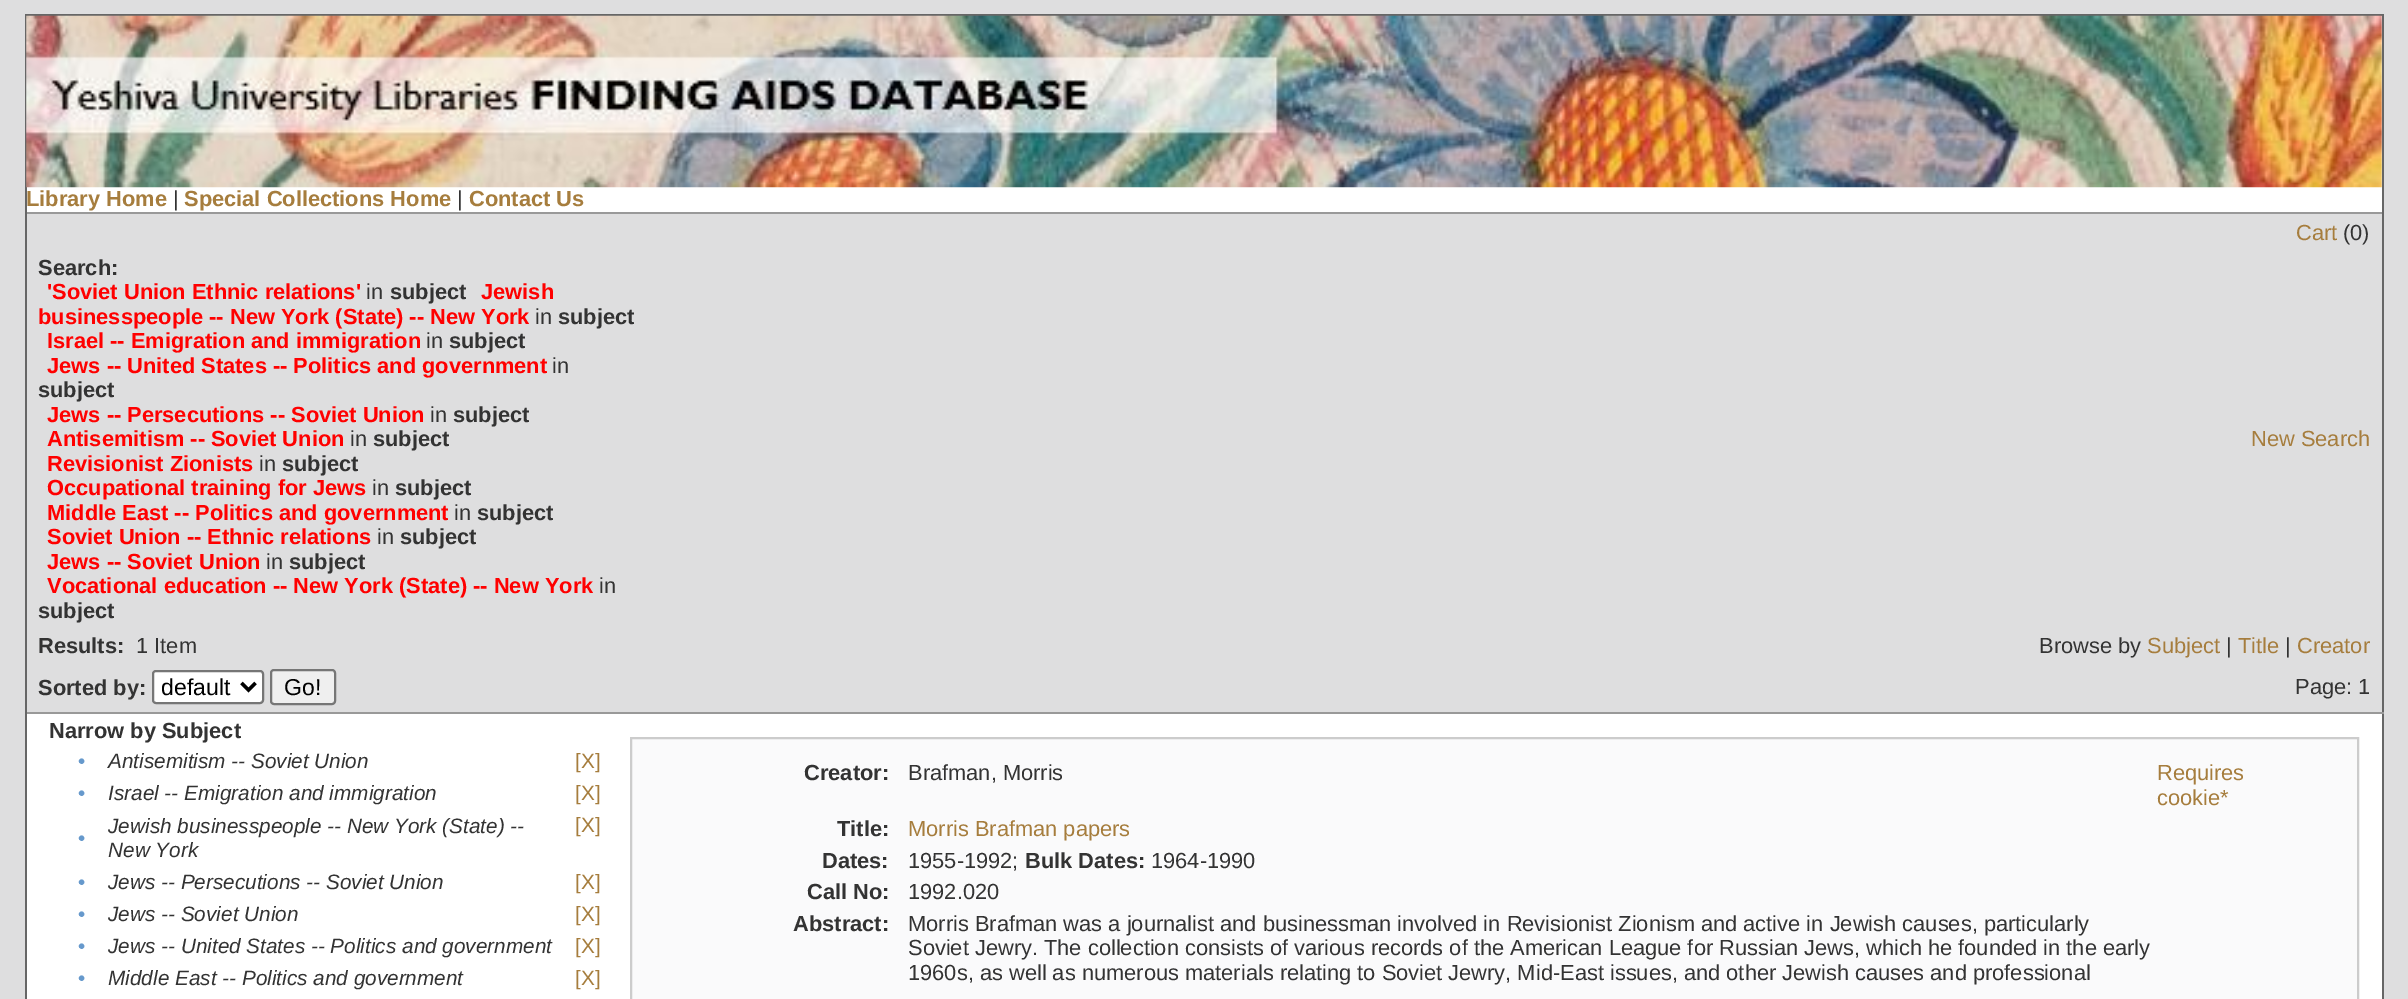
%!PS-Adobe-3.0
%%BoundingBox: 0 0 2408 999
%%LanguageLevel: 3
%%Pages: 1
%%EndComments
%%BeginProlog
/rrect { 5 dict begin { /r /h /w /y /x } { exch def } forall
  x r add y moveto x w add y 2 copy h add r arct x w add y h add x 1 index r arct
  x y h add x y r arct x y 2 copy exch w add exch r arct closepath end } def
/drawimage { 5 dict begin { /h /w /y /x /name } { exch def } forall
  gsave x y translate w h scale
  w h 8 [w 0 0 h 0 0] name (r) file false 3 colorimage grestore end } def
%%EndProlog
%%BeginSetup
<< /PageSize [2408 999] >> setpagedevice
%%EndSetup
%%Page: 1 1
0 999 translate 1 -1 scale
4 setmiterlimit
0.871 0.871 0.875 setrgbcolor
0 0 2408 999 rectfill
1 setgray
27 16 2355 196 rectfill
0.4 setgray
25 14 2359 2 rectfill
2382 14 2 198 rectfill
25 14 2 198 rectfill
(images/1.raw) 26 15 2356 173 drawimage
0.6 setgray
25 212 2359 2 rectfill
0.4 setgray
2382 212 2 787 rectfill
0.6 setgray
25 712 2359 2 rectfill
0.4 setgray
25 212 2 787 rectfill
1 setgray
153 671 110 32 3 rrect gsave fill grestore
0.463 setgray
2 setlinewidth
stroke
0 setgray
3.5 setlinewidth
newpath 241.5 683 moveto 248.5 690 lineto 255.5 683 lineto stroke
0.937 setgray
271 670 64 34 3 rrect gsave fill grestore
0.463 setgray
2 setlinewidth
stroke
1 setgray
27 714 2355 285 rectfill
0.98 0.98 0.984 setrgbcolor
newpath 631 738 moveto 2358 738 lineto 2358 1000 lineto 631 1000 lineto closepath gsave fill grestore
0.8 setgray
stroke
/LiberationSans-Bold [21.85 0 0 -21.85 0 0] selectfont
0.651 0.49 0.239 setrgbcolor
26 206 moveto (Library Home) show
/LiberationSans-Regular [21.85 0 0 -21.85 0 0] selectfont
0.2 setgray
173 206 moveto (|) show
/LiberationSans-Bold [21.85 0 0 -21.85 0 0] selectfont
0.651 0.49 0.239 setrgbcolor
184 206 moveto (Special Collections Home) show
/LiberationSans-Regular [21.85 0 0 -21.85 0 0] selectfont
0.2 setgray
457 206 moveto (|) show
/LiberationSans-Bold [21.85 0 0 -21.85 0 0] selectfont
0.651 0.49 0.239 setrgbcolor
469 206 moveto (Contact Us) show
/LiberationSans-Regular [21.85 0 0 -21.85 0 0] selectfont
2296 240 moveto (Cart) show
0.2 setgray
2343 240 moveto (\(0\)) show
/LiberationSans-Bold [21.85 0 0 -21.85 0 0] selectfont
38 275 moveto (Search:) show
1 0 0 setrgbcolor
47 299 moveto ('Soviet Union Ethnic relations') show
/LiberationSans-Regular [21.85 0 0 -21.85 0 0] selectfont
0.2 setgray
366 299 moveto (in) show
/LiberationSans-Bold [21.85 0 0 -21.85 0 0] selectfont
390 299 moveto (subject) show
1 0 0 setrgbcolor
481 299 moveto (Jewish) show
38 324 moveto (businesspeople -- New York \(State\) -- New York) show
/LiberationSans-Regular [21.85 0 0 -21.85 0 0] selectfont
0.2 setgray
535 324 moveto (in) show
/LiberationSans-Bold [21.85 0 0 -21.85 0 0] selectfont
558 324 moveto (subject) show
1 0 0 setrgbcolor
47 348 moveto (Israel -- Emigration and immigration) show
/LiberationSans-Regular [21.85 0 0 -21.85 0 0] selectfont
0.2 setgray
426 348 moveto (in) show
/LiberationSans-Bold [21.85 0 0 -21.85 0 0] selectfont
449 348 moveto (subject) show
1 0 0 setrgbcolor
47 373 moveto (Jews -- United States -- Politics and government) show
/LiberationSans-Regular [21.85 0 0 -21.85 0 0] selectfont
0.2 setgray
552 373 moveto (in) show
/LiberationSans-Bold [21.85 0 0 -21.85 0 0] selectfont
38 397 moveto (subject) show
1 0 0 setrgbcolor
47 422 moveto (Jews -- Persecutions -- Soviet Union) show
/LiberationSans-Regular [21.85 0 0 -21.85 0 0] selectfont
0.2 setgray
430 422 moveto (in) show
/LiberationSans-Bold [21.85 0 0 -21.85 0 0] selectfont
453 422 moveto (subject) show
1 0 0 setrgbcolor
47 446 moveto (Antisemitism -- Soviet Union) show
/LiberationSans-Regular [21.85 0 0 -21.85 0 0] selectfont
0.2 setgray
350 446 moveto (in) show
/LiberationSans-Bold [21.85 0 0 -21.85 0 0] selectfont
373 446 moveto (subject) show
1 0 0 setrgbcolor
47 471 moveto (Revisionist Zionists) show
/LiberationSans-Regular [21.85 0 0 -21.85 0 0] selectfont
0.2 setgray
259 471 moveto (in) show
/LiberationSans-Bold [21.85 0 0 -21.85 0 0] selectfont
282 471 moveto (subject) show
1 0 0 setrgbcolor
47 495 moveto (Occupational training for Jews) show
/LiberationSans-Regular [21.85 0 0 -21.85 0 0] selectfont
0.2 setgray
372 495 moveto (in) show
/LiberationSans-Bold [21.85 0 0 -21.85 0 0] selectfont
395 495 moveto (subject) show
1 0 0 setrgbcolor
47 520 moveto (Middle East -- Politics and government) show
/LiberationSans-Regular [21.85 0 0 -21.85 0 0] selectfont
0.2 setgray
454 520 moveto (in) show
/LiberationSans-Bold [21.85 0 0 -21.85 0 0] selectfont
477 520 moveto (subject) show
1 0 0 setrgbcolor
47 544 moveto (Soviet Union -- Ethnic relations) show
/LiberationSans-Regular [21.85 0 0 -21.85 0 0] selectfont
0.2 setgray
377 544 moveto (in) show
/LiberationSans-Bold [21.85 0 0 -21.85 0 0] selectfont
400 544 moveto (subject) show
1 0 0 setrgbcolor
47 569 moveto (Jews -- Soviet Union) show
/LiberationSans-Regular [21.85 0 0 -21.85 0 0] selectfont
0.2 setgray
266 569 moveto (in) show
/LiberationSans-Bold [21.85 0 0 -21.85 0 0] selectfont
289 569 moveto (subject) show
1 0 0 setrgbcolor
47 593 moveto (Vocational education -- New York \(State\) -- New York) show
/LiberationSans-Regular [21.85 0 0 -21.85 0 0] selectfont
0.2 setgray
599 593 moveto (in) show
/LiberationSans-Bold [21.85 0 0 -21.85 0 0] selectfont
38 618 moveto (subject) show
/LiberationSans-Regular [21.85 0 0 -21.85 0 0] selectfont
0.651 0.49 0.239 setrgbcolor
2251 446 moveto (New Search) show
/LiberationSans-Bold [21.85 0 0 -21.85 0 0] selectfont
0.2 setgray
38 653 moveto (Results:) show
/LiberationSans-Regular [21.85 0 0 -21.85 0 0] selectfont
136 653 moveto (1 Item) show
2039 653 moveto (Browse by) show
0.651 0.49 0.239 setrgbcolor
2147 653 moveto (Subject) show
0.2 setgray
2226 653 moveto (|) show
0.651 0.49 0.239 setrgbcolor
2238 653 moveto (Title) show
0.2 setgray
2285 653 moveto (|) show
0.651 0.49 0.239 setrgbcolor
2297 653 moveto (Creator) show
/LiberationSans-Bold [21.85 0 0 -21.85 0 0] selectfont
0.2 setgray
38 695 moveto (Sorted by:) show
/LiberationSans-Regular [23 0 0 -23 0 0] selectfont
0 setgray
161 695 moveto (default) show
284 695 moveto (Go!) show
/LiberationSans-Regular [21.85 0 0 -21.85 0 0] selectfont
0.2 setgray
2295 694 moveto (Page: 1) show
/LiberationSans-Bold [21.85 0 0 -21.85 0 0] selectfont
49 738 moveto (Narrow by Subject) show
/LiberationSans-Regular [20.75 0 0 -20.75 0 0] selectfont
0.4 0.6 0.8 setrgbcolor
78 768 moveto (•) show
/LiberationSans-Italic [20.75 0 0 -20.75 0 0] selectfont
0.2 setgray
108 768 moveto (Antisemitism -- Soviet Union) show
/LiberationSans-Regular [20.75 0 0 -20.75 0 0] selectfont
0.651 0.49 0.239 setrgbcolor
575 768 moveto ([X]) show
0.4 0.6 0.8 setrgbcolor
78 800 moveto (•) show
/LiberationSans-Italic [20.75 0 0 -20.75 0 0] selectfont
0.2 setgray
108 800 moveto (Israel -- Emigration and immigration) show
/LiberationSans-Regular [20.75 0 0 -20.75 0 0] selectfont
0.651 0.49 0.239 setrgbcolor
575 800 moveto ([X]) show
0.4 0.6 0.8 setrgbcolor
78 845 moveto (•) show
/LiberationSans-Italic [20.75 0 0 -20.75 0 0] selectfont
0.2 setgray
108 833 moveto (Jewish businesspeople -- New York \(State\) --) show
108 857 moveto (New York) show
/LiberationSans-Regular [20.75 0 0 -20.75 0 0] selectfont
0.651 0.49 0.239 setrgbcolor
575 832 moveto ([X]) show
0.4 0.6 0.8 setrgbcolor
78 889 moveto (•) show
/LiberationSans-Italic [20.75 0 0 -20.75 0 0] selectfont
0.2 setgray
108 889 moveto (Jews -- Persecutions -- Soviet Union) show
/LiberationSans-Regular [20.75 0 0 -20.75 0 0] selectfont
0.651 0.49 0.239 setrgbcolor
575 889 moveto ([X]) show
0.4 0.6 0.8 setrgbcolor
78 921 moveto (•) show
/LiberationSans-Italic [20.75 0 0 -20.75 0 0] selectfont
0.2 setgray
108 921 moveto (Jews -- Soviet Union) show
/LiberationSans-Regular [20.75 0 0 -20.75 0 0] selectfont
0.651 0.49 0.239 setrgbcolor
575 921 moveto ([X]) show
0.4 0.6 0.8 setrgbcolor
78 953 moveto (•) show
/LiberationSans-Italic [20.75 0 0 -20.75 0 0] selectfont
0.2 setgray
108 953 moveto (Jews -- United States -- Politics and government) show
/LiberationSans-Regular [20.75 0 0 -20.75 0 0] selectfont
0.651 0.49 0.239 setrgbcolor
575 953 moveto ([X]) show
0.4 0.6 0.8 setrgbcolor
78 985 moveto (•) show
/LiberationSans-Italic [20.75 0 0 -20.75 0 0] selectfont
0.2 setgray
108 985 moveto (Middle East -- Politics and government) show
/LiberationSans-Regular [20.75 0 0 -20.75 0 0] selectfont
0.651 0.49 0.239 setrgbcolor
575 985 moveto ([X]) show
/LiberationSans-Bold [21.85 0 0 -21.85 0 0] selectfont
0.2 setgray
804 780 moveto (Creator:) show
/LiberationSans-Regular [21.85 0 0 -21.85 0 0] selectfont
908 780 moveto (Brafman, Morris) show
0.651 0.49 0.239 setrgbcolor
2157 780 moveto (Requires) show
2157 805 moveto (cookie*) show
/LiberationSans-Bold [21.85 0 0 -21.85 0 0] selectfont
0.2 setgray
837 836 moveto (Title:) show
/LiberationSans-Regular [21.85 0 0 -21.85 0 0] selectfont
0.651 0.49 0.239 setrgbcolor
908 836 moveto (Morris Brafman papers) show
/LiberationSans-Bold [21.85 0 0 -21.85 0 0] selectfont
0.2 setgray
822 868 moveto (Dates:) show
/LiberationSans-Regular [21.85 0 0 -21.85 0 0] selectfont
908 868 moveto (1955-1992;) show
/LiberationSans-Bold [21.85 0 0 -21.85 0 0] selectfont
1025 868 moveto (Bulk Dates:) show
/LiberationSans-Regular [21.85 0 0 -21.85 0 0] selectfont
1151 868 moveto (1964-1990) show
/LiberationSans-Bold [21.85 0 0 -21.85 0 0] selectfont
807 899 moveto (Call No:) show
/LiberationSans-Regular [21.85 0 0 -21.85 0 0] selectfont
908 899 moveto (1992.020) show
/LiberationSans-Bold [21.85 0 0 -21.85 0 0] selectfont
793 931 moveto (Abstract:) show
/LiberationSans-Regular [21.85 0 0 -21.85 0 0] selectfont
908 931 moveto (Morris Brafman was a journalist and businessman involved in Revisionist Zionism and active in Jewish causes, particularly) show
908 955 moveto (Soviet Jewry. The collection consists of various records of the American League for Russian Jews, which he founded in the early) show
908 980 moveto (1960s, as well as numerous materials relating to Soviet Jewry, Mid-East issues, and other Jewish causes and professional) show
showpage
%%EOF
